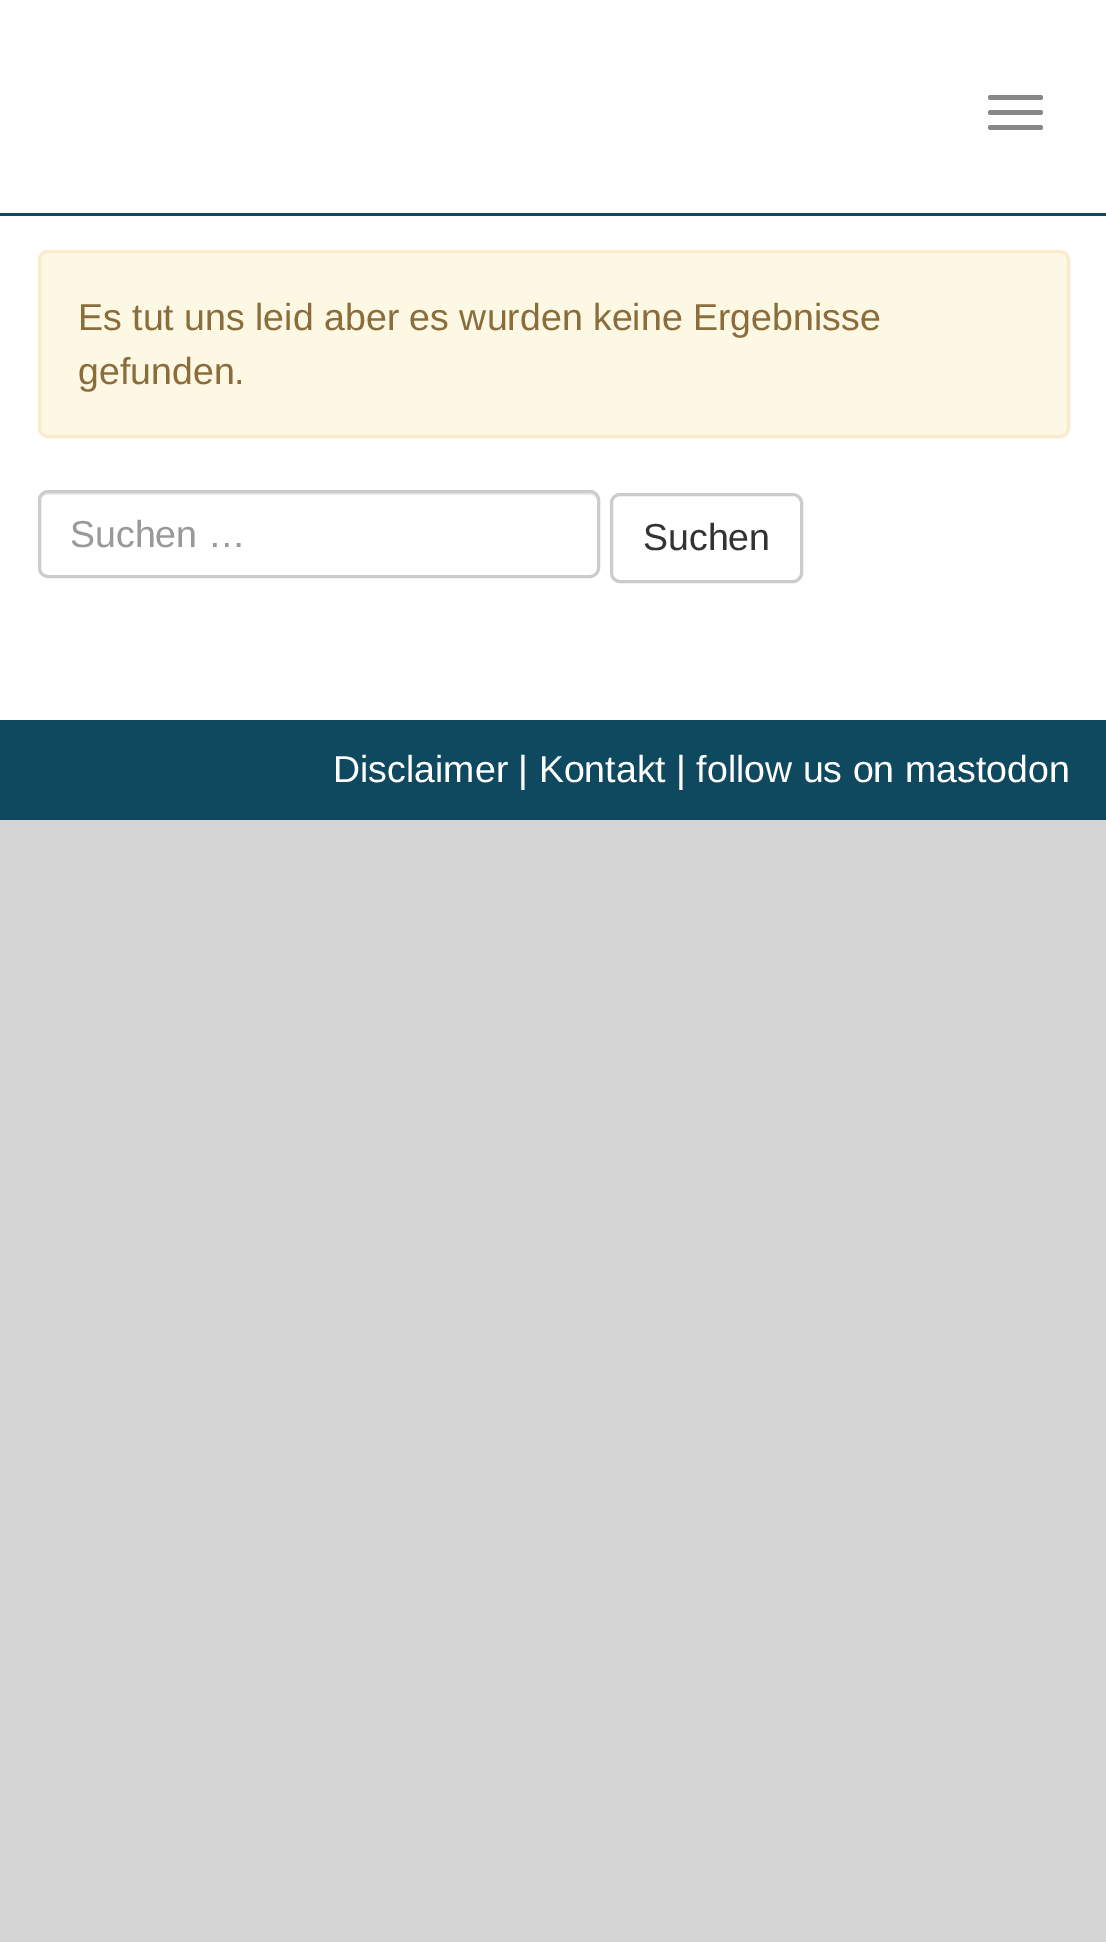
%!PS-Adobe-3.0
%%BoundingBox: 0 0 1106 1942
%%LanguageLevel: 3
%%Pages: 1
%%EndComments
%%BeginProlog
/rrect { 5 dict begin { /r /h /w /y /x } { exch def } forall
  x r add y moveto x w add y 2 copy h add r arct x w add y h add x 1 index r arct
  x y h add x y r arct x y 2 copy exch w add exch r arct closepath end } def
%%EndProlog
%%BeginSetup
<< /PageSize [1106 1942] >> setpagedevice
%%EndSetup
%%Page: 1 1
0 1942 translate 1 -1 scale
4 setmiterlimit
0.835 setgray
0 0 1106 1942 rectfill
1 setgray
0 0 1106 213 rectfill
0.059 0.286 0.373 setrgbcolor
0 213 1106 3 rectfill
0.533 setgray
988 95 55 5 2.5 rrect fill
988 110 55 5 2.5 rrect fill
988 125 55 5 2.5 rrect fill
1 setgray
0 216 1106 504 rectfill
0.988 0.973 0.89 setrgbcolor
39.5 251.5 1029 185 8.5 rrect gsave fill grestore
0.98 0.922 0.8 setrgbcolor
3 setlinewidth
stroke
0.925 setgray
newpath 48 495 moveto 590 495 lineto 594 495 598 498 598 502 curveto 598 501 lineto 598 497 594 493 590 493 curveto 48 493 lineto 44 493 40 497 40 501 curveto 40 502 lineto 40 498 43 495 48 495 curveto closepath fill
0.8 setgray
39.5 491.5 559 85 8.5 rrect stroke
611.5 494.5 190 87 8.5 rrect stroke
0.059 0.286 0.373 setrgbcolor
0 720 1106 100 rectfill
/LiberationSans-Regular [37.5 0 0 -37.5 0 0] selectfont
0.541 0.427 0.231 setrgbcolor
78 330 moveto (Es tut uns leid aber es wurden keine Ergebnisse) show
78 384 moveto (gefunden.) show
0.6 setgray
70 547 moveto (Suchen …) show
0.2 setgray
643 550 moveto (Suchen) show
1 setgray
333 782 moveto (Disclaimer | Kontakt | follow us on mastodon) show
showpage
%%EOF
